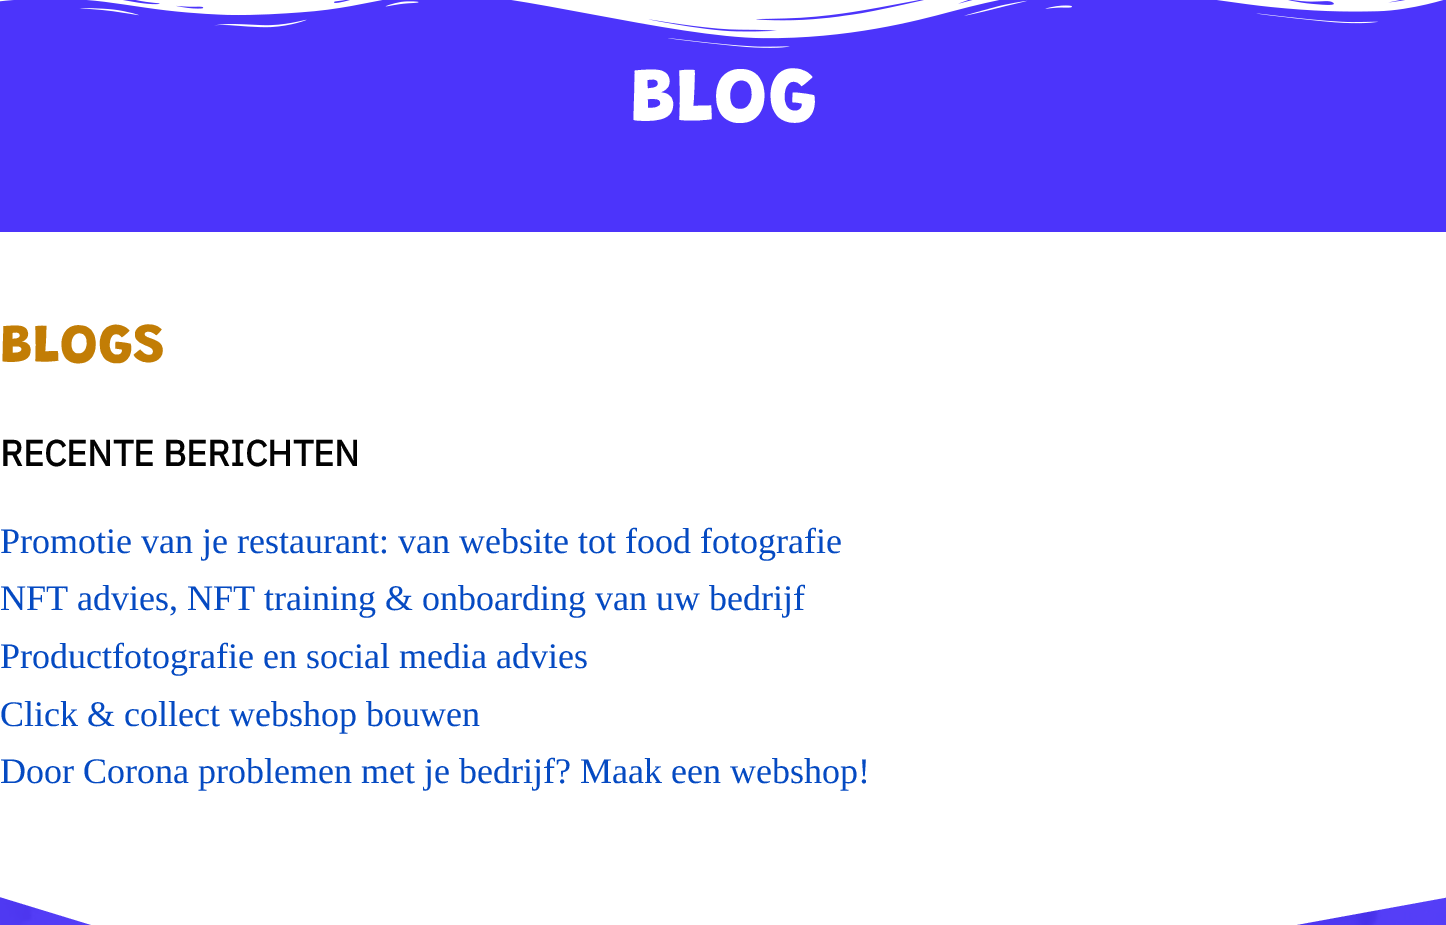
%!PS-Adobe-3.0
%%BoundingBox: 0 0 1446 925
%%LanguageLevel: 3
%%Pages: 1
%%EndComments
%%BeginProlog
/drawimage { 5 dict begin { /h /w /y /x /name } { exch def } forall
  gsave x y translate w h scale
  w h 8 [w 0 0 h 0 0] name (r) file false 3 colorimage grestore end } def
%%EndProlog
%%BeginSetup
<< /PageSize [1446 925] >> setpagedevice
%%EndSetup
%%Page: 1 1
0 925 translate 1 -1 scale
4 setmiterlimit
1 setgray
0 0 1446 925 rectfill
0.298 0.204 0.984 setrgbcolor
0 0 1446 232 rectfill
(images/1.raw) 0 0 1444 48 drawimage
(images/2.raw) 0 897 1446 28 drawimage
1 setgray
newpath 1104 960 moveto 932 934 lineto 484 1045 lineto 0 897 lineto 0 891 lineto 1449 891 lineto 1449 897 lineto fill
/Grandstander-ExtraBold [79 0 0 -79 0 0] selectfont
630 121 moveto (BLOG) show
/Grandstander-ExtraBold [56 0 0 -56 0 0] selectfont
0.761 0.49 0.02 setrgbcolor
0 362 moveto (BLOGS) show
/IBMPlexSans-Bold [36 0 0 -36 0 0] selectfont
0.008 setgray
0 466 moveto (RECENTE BERICHTEN) show
/LiberationSerif-Regular [36 0 0 -36 0 0] selectfont
0.02 0.29 0.761 setrgbcolor
0 553 moveto (Promotie van je restaurant: van website tot food fotografie) show
0 610 moveto (NFT advies, NFT training & onboarding van uw bedrijf) show
0 668 moveto (Productfotografie en social media advies) show
0 726 moveto (Click & collect webshop bouwen) show
0 783 moveto (Door Corona problemen met je bedrijf? Maak een webshop!) show
showpage
%%EOF
